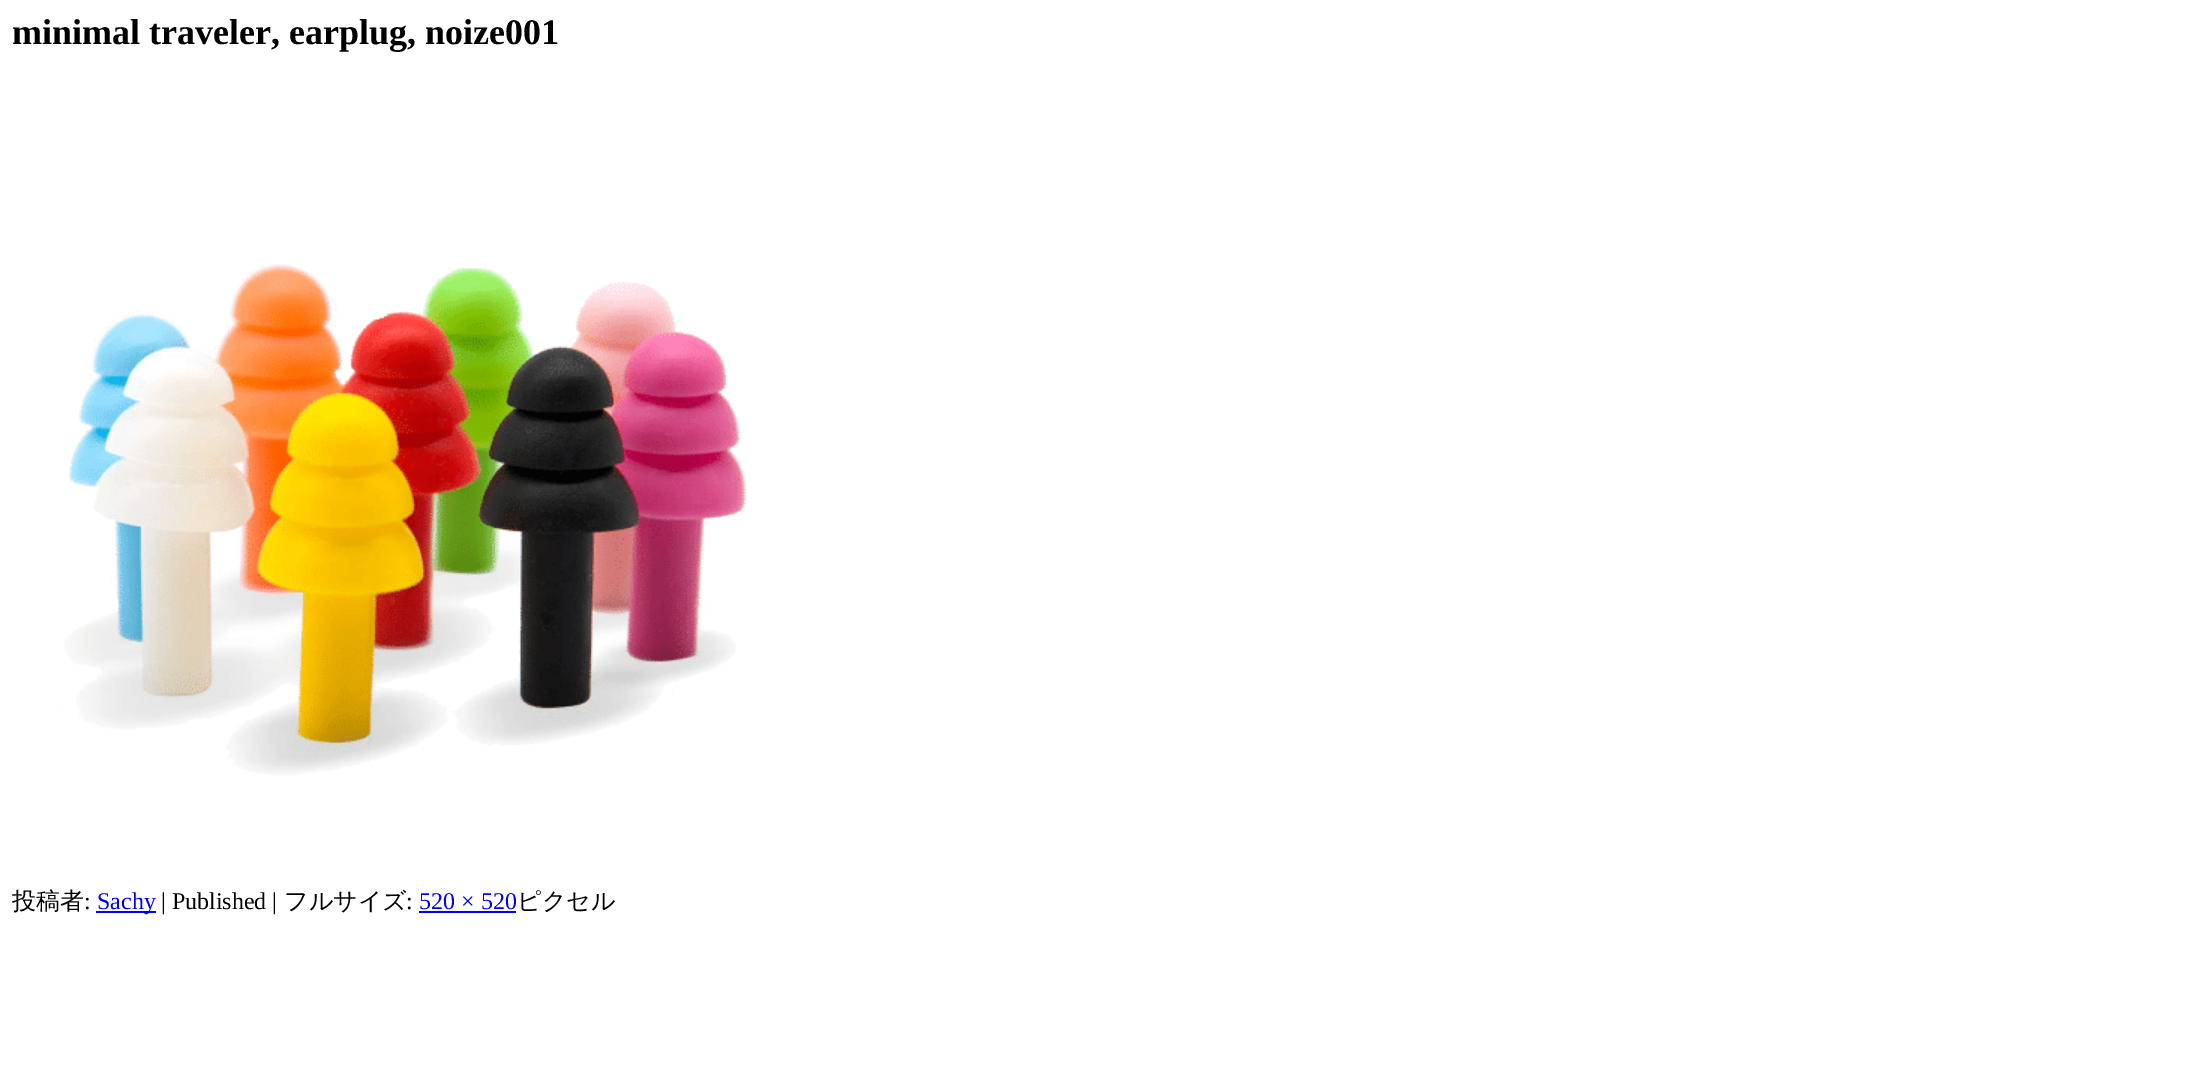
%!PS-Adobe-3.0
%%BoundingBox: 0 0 2187 1069
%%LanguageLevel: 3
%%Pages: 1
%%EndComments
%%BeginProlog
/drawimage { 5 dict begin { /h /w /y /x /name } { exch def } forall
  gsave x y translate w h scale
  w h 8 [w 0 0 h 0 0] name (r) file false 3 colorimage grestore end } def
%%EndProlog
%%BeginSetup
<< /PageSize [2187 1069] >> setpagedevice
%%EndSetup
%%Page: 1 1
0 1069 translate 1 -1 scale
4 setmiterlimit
1 setgray
0 0 2187 1069 rectfill
(images/1.raw) 56 264 692 512 drawimage
0 0 0.933 setrgbcolor
96 911 60 2 rectfill
419 911 97 2 rectfill
/LiberationSerif-Bold [36 0 0 -36 0 0] selectfont
0 setgray
12 44 moveto (minimal traveler, earplug, noize001) show
/WenQuanYiZenHei-Medium [24 0 0 -24 0 0] selectfont
12 909 moveto (投稿者) show
/LiberationSerif-Regular [24 0 0 -24 0 0] selectfont
84 909 moveto (:) show
0 0 0.933 setrgbcolor
97 909 moveto (Sachy) show
0 setgray
161 909 moveto (| Published |) show
/WenQuanYiZenHei-Medium [24 0 0 -24 0 0] selectfont
284 909 moveto (フルサイズ) show
/LiberationSerif-Regular [24 0 0 -24 0 0] selectfont
406 909 moveto (:) show
0 0 0.933 setrgbcolor
419 909 moveto (520 × 520) show
/WenQuanYiZenHei-Medium [24 0 0 -24 0 0] selectfont
0 setgray
517 909 moveto (ピクセル) show
showpage
%%EOF
